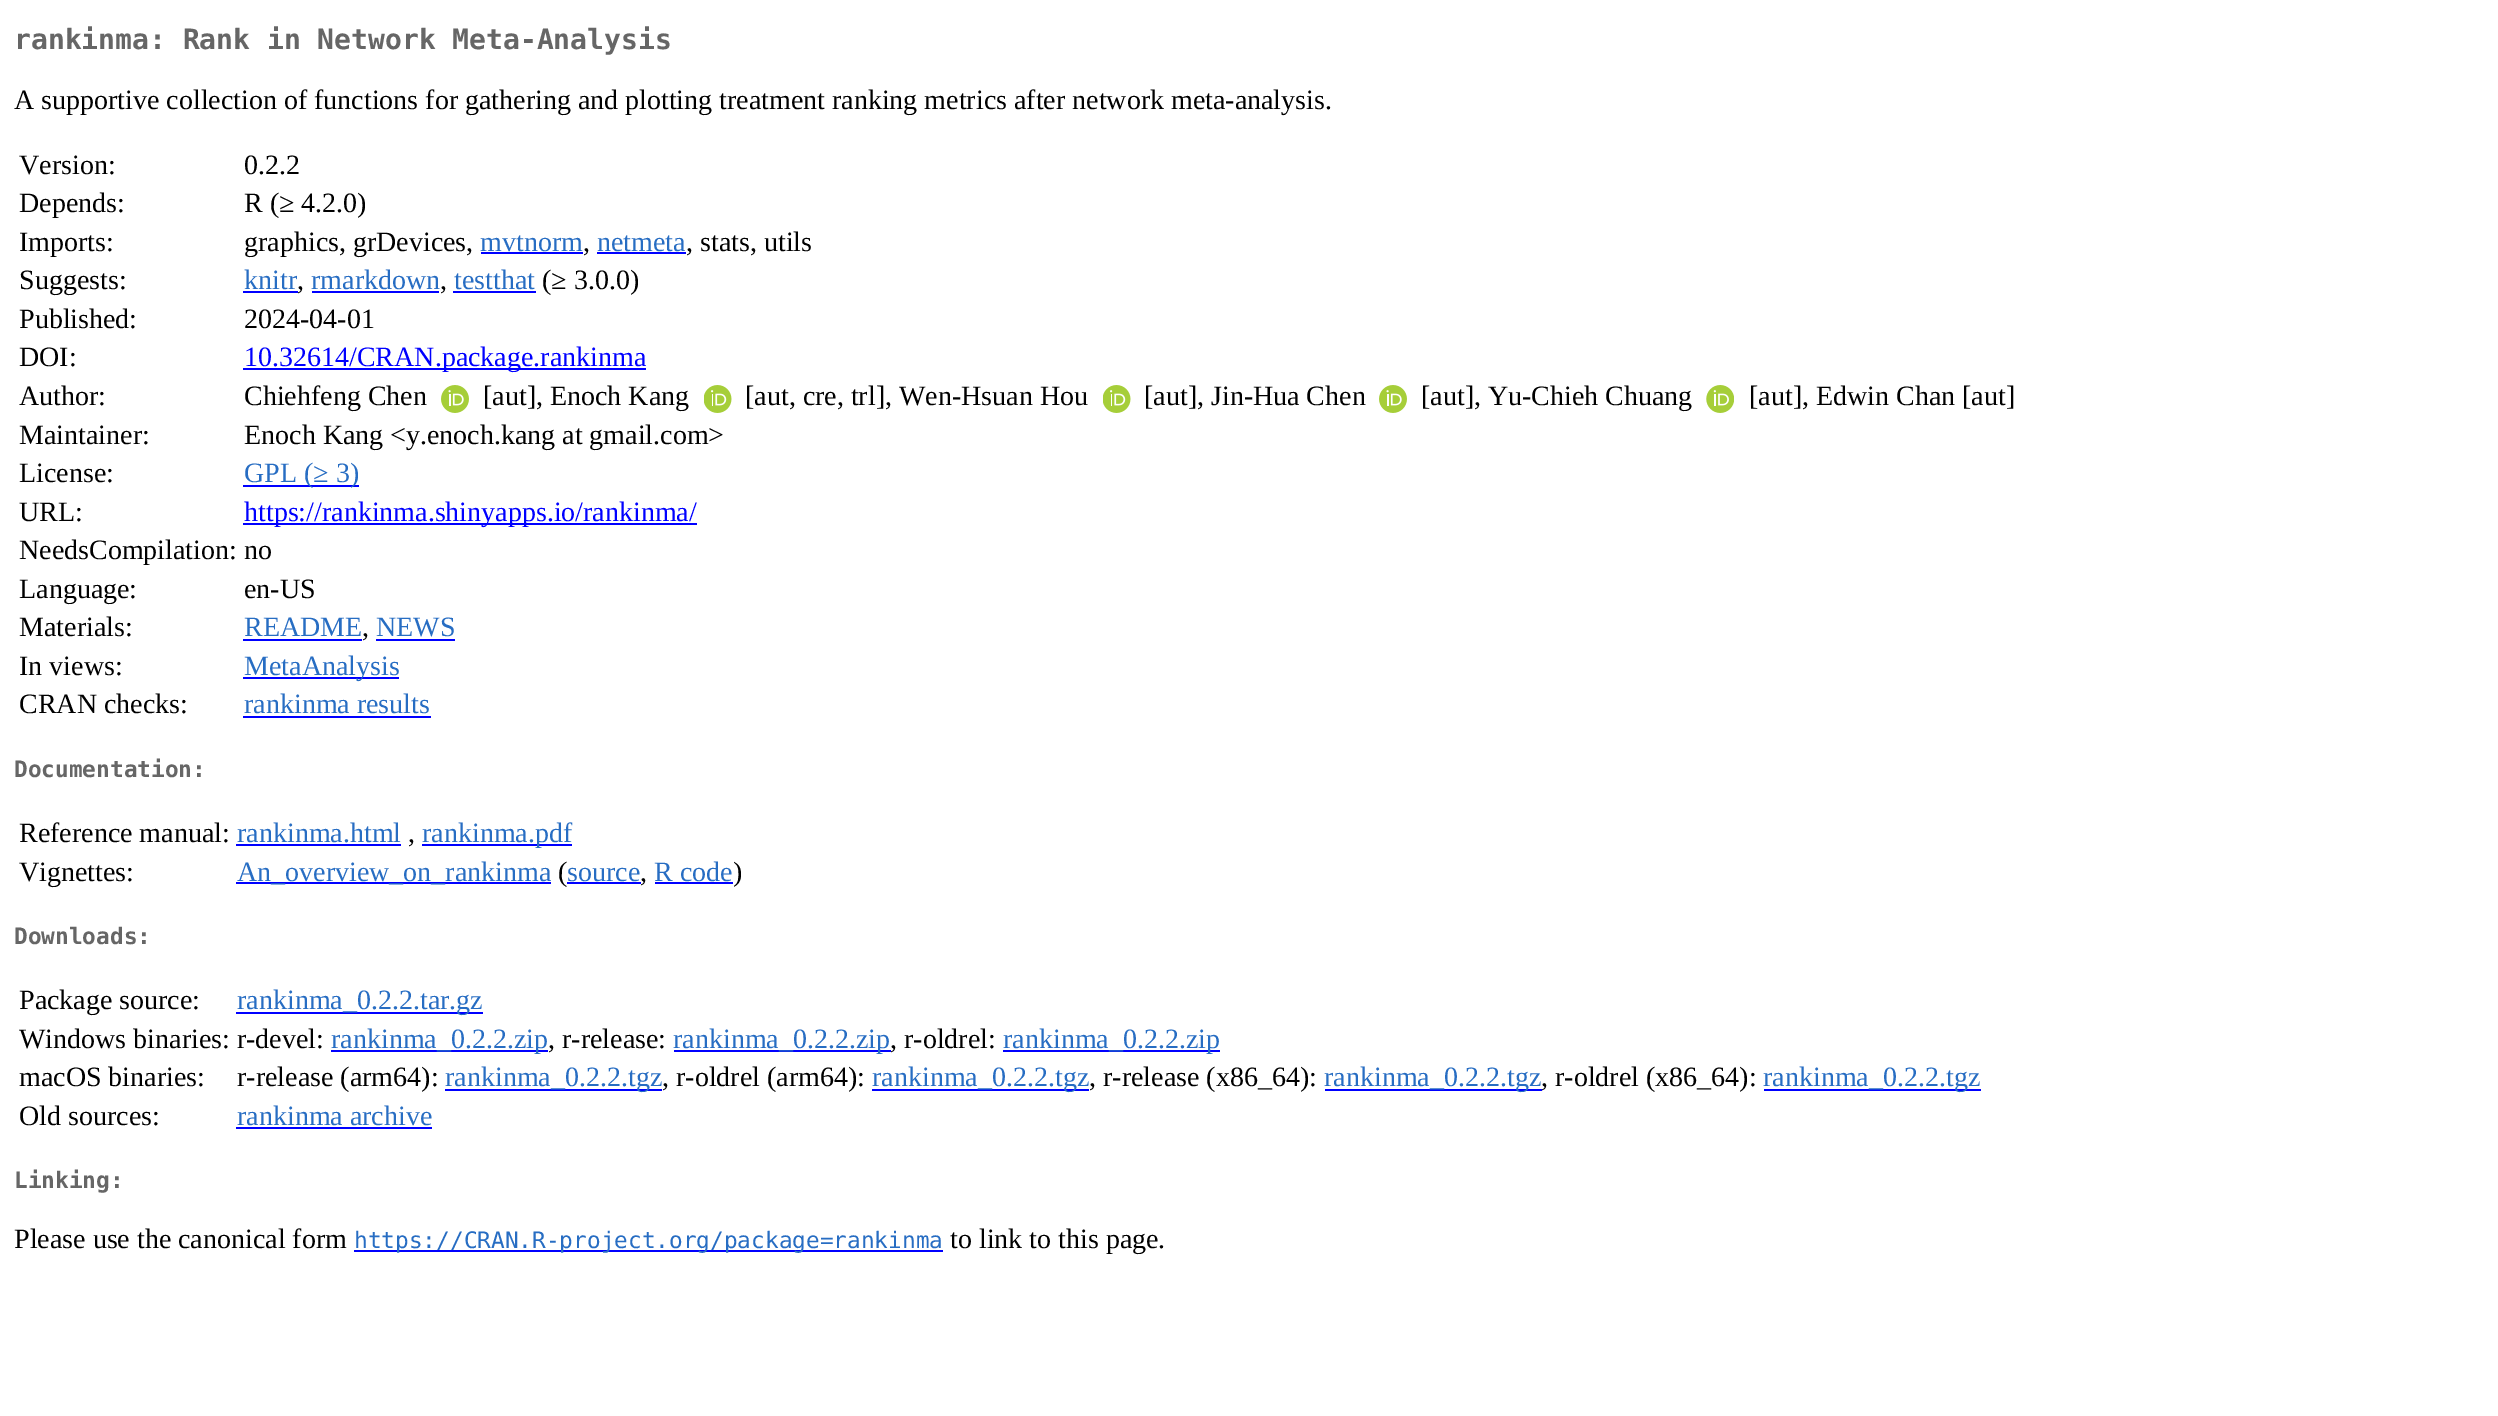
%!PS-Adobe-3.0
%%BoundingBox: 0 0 2498 1416
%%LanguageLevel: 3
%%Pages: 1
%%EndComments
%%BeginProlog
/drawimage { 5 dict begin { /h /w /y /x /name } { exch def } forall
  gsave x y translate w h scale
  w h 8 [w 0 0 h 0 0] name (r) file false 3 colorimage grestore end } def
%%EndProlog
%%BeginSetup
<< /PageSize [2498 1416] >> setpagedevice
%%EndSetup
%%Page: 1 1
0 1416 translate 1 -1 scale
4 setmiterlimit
1 setgray
0 0 2498 1416 rectfill
0 0 1 setrgbcolor
481 252 102 2 rectfill
597 252 89 2 rectfill
243 291 55 2 rectfill
312 291 127 2 rectfill
453 291 83 2 rectfill
243 368 403 2 rectfill
(images/1.raw) 441 385 28 28 drawimage
(images/2.raw) 704 385 28 28 drawimage
(images/2.raw) 1103 385 28 28 drawimage
(images/1.raw) 1379 385 28 28 drawimage
(images/3.raw) 1706 385 28 28 drawimage
243 485 116 2 rectfill
243 523 454 2 rectfill
243 639 119 2 rectfill
376 639 79 2 rectfill
243 677 156 2 rectfill
243 716 188 2 rectfill
236 844 165 2 rectfill
422 844 150 2 rectfill
236 882 315 2 rectfill
567 882 74 2 rectfill
655 882 78 2 rectfill
236 1012 247 2 rectfill
331 1050 217 2 rectfill
674 1050 217 2 rectfill
1003 1050 217 2 rectfill
445 1089 217 2 rectfill
872 1089 217 2 rectfill
1325 1089 217 2 rectfill
1764 1089 217 2 rectfill
236 1127 196 2 rectfill
354 1250 589 2 rectfill
/DejaVuSansMono-Bold [28 0 0 -28 0 0] selectfont
0.4 setgray
14 49 moveto (rankinma: Rank in Network Meta-Analysis) show
/LiberationSerif-Regular [28 0 0 -28 0 0] selectfont
0 setgray
14 109 moveto (A supportive collection of functions for gathering and plotting treatment ranking metrics after network meta-analysis.) show
19 174 moveto (Version:) show
244 174 moveto (0.2.2) show
19 212 moveto (Depends:) show
244 212 moveto (R \(≥ 4.2.0\)) show
19 251 moveto (Imports:) show
244 251 moveto (graphics, grDevices,) show
0.153 0.427 0.765 setrgbcolor
480 251 moveto (mvtnorm) show
0 setgray
583 251 moveto (,) show
0.153 0.427 0.765 setrgbcolor
597 251 moveto (netmeta) show
0 setgray
686 251 moveto (, stats, utils) show
19 289 moveto (Suggests:) show
0.153 0.427 0.765 setrgbcolor
244 289 moveto (knitr) show
0 setgray
297 289 moveto (,) show
0.153 0.427 0.765 setrgbcolor
311 289 moveto (rmarkdown) show
0 setgray
440 289 moveto (,) show
0.153 0.427 0.765 setrgbcolor
454 289 moveto (testthat) show
0 setgray
542 289 moveto (\(≥ 3.0.0\)) show
19 328 moveto (Published:) show
244 328 moveto (2024-04-01) show
19 366 moveto (DOI:) show
0 0 1 setrgbcolor
244 366 moveto (10.32614/CRAN.package.rankinma) show
0 setgray
19 405 moveto (Author:) show
244 405 moveto (Chiehfeng Chen) show
483 405 moveto ([aut], Enoch Kang) show
745 405 moveto ([aut, cre, trl], Wen-Hsuan Hou) show
1144 405 moveto ([aut], Jin-Hua Chen) show
1421 405 moveto ([aut], Yu-Chieh Chuang) show
1749 405 moveto ([aut], Edwin Chan [aut]) show
19 444 moveto (Maintainer:) show
244 444 moveto (Enoch Kang <y.enoch.kang at gmail.com>) show
19 482 moveto (License:) show
0.153 0.427 0.765 setrgbcolor
244 482 moveto (GPL \(≥ 3\)) show
0 setgray
19 521 moveto (URL:) show
0 0 1 setrgbcolor
244 521 moveto (https://rankinma.shinyapps.io/rankinma/) show
0 setgray
19 559 moveto (NeedsCompilation: no) show
19 598 moveto (Language:) show
244 598 moveto (en-US) show
19 636 moveto (Materials:) show
0.153 0.427 0.765 setrgbcolor
244 636 moveto (README) show
0 setgray
362 636 moveto (,) show
0.153 0.427 0.765 setrgbcolor
376 636 moveto (NEWS) show
0 setgray
19 675 moveto (In views:) show
0.153 0.427 0.765 setrgbcolor
244 675 moveto (MetaAnalysis) show
0 setgray
19 713 moveto (CRAN checks:) show
0.153 0.427 0.765 setrgbcolor
244 713 moveto (rankinma results) show
/DejaVuSansMono-Bold [22.75 0 0 -22.75 0 0] selectfont
0.4 setgray
14 777 moveto (Documentation:) show
/LiberationSerif-Regular [28 0 0 -28 0 0] selectfont
0 setgray
19 842 moveto (Reference manual:) show
0.153 0.427 0.765 setrgbcolor
237 842 moveto (rankinma.html) show
0 setgray
408 842 moveto (,) show
0.153 0.427 0.765 setrgbcolor
422 842 moveto (rankinma.pdf) show
0 setgray
19 881 moveto (Vignettes:) show
0.153 0.427 0.765 setrgbcolor
237 881 moveto (An_overview_on_rankinma) show
0 setgray
558 881 moveto (\() show
0.153 0.427 0.765 setrgbcolor
567 881 moveto (source) show
0 setgray
640 881 moveto (,) show
0.153 0.427 0.765 setrgbcolor
654 881 moveto (R code) show
0 setgray
733 881 moveto (\)) show
/DejaVuSansMono-Bold [22.75 0 0 -22.75 0 0] selectfont
0.4 setgray
14 944 moveto (Downloads:) show
/LiberationSerif-Regular [28 0 0 -28 0 0] selectfont
0 setgray
19 1009 moveto (Package source:) show
0.153 0.427 0.765 setrgbcolor
237 1009 moveto (rankinma_0.2.2.tar.gz) show
0 setgray
19 1048 moveto (Windows binaries: r-devel:) show
0.153 0.427 0.765 setrgbcolor
331 1048 moveto (rankinma_0.2.2.zip) show
0 setgray
548 1048 moveto (, r-release:) show
0.153 0.427 0.765 setrgbcolor
673 1048 moveto (rankinma_0.2.2.zip) show
0 setgray
890 1048 moveto (, r-oldrel:) show
0.153 0.427 0.765 setrgbcolor
1003 1048 moveto (rankinma_0.2.2.zip) show
0 setgray
19 1086 moveto (macOS binaries:) show
237 1086 moveto (r-release \(arm64\):) show
0.153 0.427 0.765 setrgbcolor
445 1086 moveto (rankinma_0.2.2.tgz) show
0 setgray
662 1086 moveto (, r-oldrel \(arm64\):) show
0.153 0.427 0.765 setrgbcolor
872 1086 moveto (rankinma_0.2.2.tgz) show
0 setgray
1089 1086 moveto (, r-release \(x86_64\):) show
0.153 0.427 0.765 setrgbcolor
1324 1086 moveto (rankinma_0.2.2.tgz) show
0 setgray
1541 1086 moveto (, r-oldrel \(x86_64\):) show
0.153 0.427 0.765 setrgbcolor
1763 1086 moveto (rankinma_0.2.2.tgz) show
0 setgray
19 1125 moveto (Old sources:) show
0.153 0.427 0.765 setrgbcolor
237 1125 moveto (rankinma archive) show
/DejaVuSansMono-Bold [22.75 0 0 -22.75 0 0] selectfont
0.4 setgray
14 1188 moveto (Linking:) show
/LiberationSerif-Regular [28 0 0 -28 0 0] selectfont
0 setgray
14 1248 moveto (Please use the canonical form) show
/DejaVuSansMono-Regular [22.75 0 0 -22.75 0 0] selectfont
0.153 0.427 0.765 setrgbcolor
354 1248 moveto (https://CRAN.R-project.org/package=rankinma) show
/LiberationSerif-Regular [28 0 0 -28 0 0] selectfont
0 setgray
950 1248 moveto (to link to this page.) show
showpage
%%EOF
